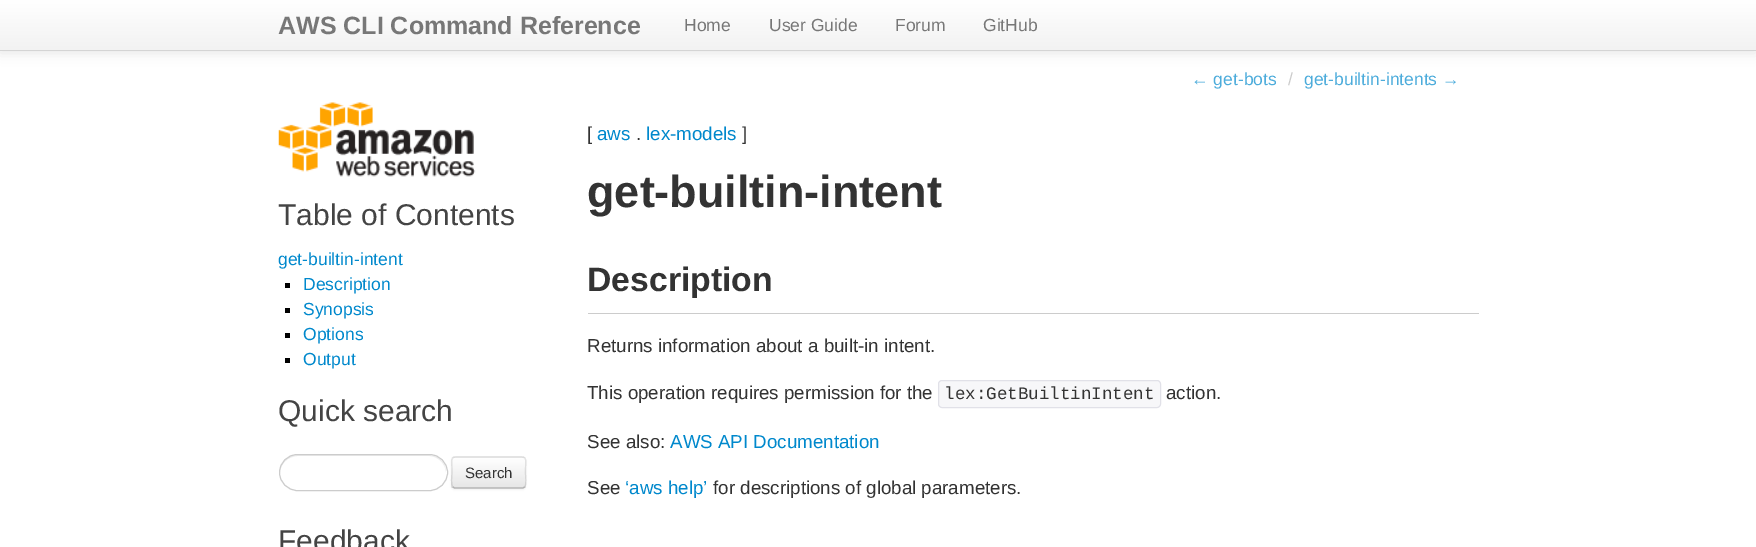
%!PS-Adobe-3.0
%%BoundingBox: 0 0 1756 547
%%LanguageLevel: 3
%%Pages: 1
%%EndComments
%%BeginProlog
/setalpha { dup .setfillconstantalpha .setstrokeconstantalpha } def
/rrect { 5 dict begin { /r /h /w /y /x } { exch def } forall
  x r add y moveto x w add y 2 copy h add r arct x w add y h add x 1 index r arct
  x y h add x y r arct x y 2 copy exch w add exch r arct closepath end } def
/softshadow { 12 dict begin { /a /b /q /h /w /y /x } { exch def } forall gsave /was 0 def
  9 -2 -9 { dup b mul 4 div /e exch def 1 sub .425 mul 2.718 exch exp 1 add a .99 .min exch div /now exch def
    1 1 now sub 1 was sub div sub setalpha /was now def
    w h .min e 2 mul add 0 gt { x e sub y e sub w e 2 mul add h e 2 mul add
      q e add b .6 mul add w h .min 2 div e add .min 0 .max rrect fill } if } for grestore end } def
/drawimage { 5 dict begin { /h /w /y /x /name } { exch def } forall
  gsave x y translate w h scale
  w h 8 [w 0 0 h 0 0] name (r) file false 3 colorimage grestore end } def
%%EndProlog
%%BeginSetup
<< /PageSize [1756 547] /PageUsesTransparency true >> setpagedevice
%%EndSetup
%%Page: 1 1
0 .pushpdf14devicefilter
0 547 translate 1 -1 scale
4 setmiterlimit
1 setgray
0 0 1756 547 rectfill
0 setgray
0 1 1756 52 0 6 0.1 softshadow
gsave newpath 0 0 moveto 1756 0 lineto 1756 50 lineto 0 50 lineto closepath clip newpath
<< /ShadingType 2 /ColorSpace /DeviceRGB /Coords [878 0 878 50] /Extend [true true] /Function << /FunctionType 2 /Domain [0 1] /C0 [1 1 1] /C1 [0.949 0.949 0.949] /N 1 >> >> shfill grestore
0.831 setgray
0 50 1756 1 rectfill
(images/1.raw) 278 102 198 75 drawimage
0 setgray
285 283 5 5 rectfill
285 308 5 5 rectfill
285 333 5 5 rectfill
285 358 5 5 rectfill
0.925 setgray
newpath 298 456 moveto 429 456 lineto 438 456 446 464 446 473 curveto 446 472 lineto 446 463 438 455 428 455 curveto 298 455 lineto 288 455 280 463 280 472 curveto 280 473 lineto 280 464 288 456 298 456 curveto closepath fill
0.8 setgray
279.5 454.5 168 36 18 rrect stroke
0 setgray
451 458 75 32 4 1 0.05 softshadow
0.961 setgray
451 456 75 33 4 rrect fill
gsave
451 456 75 33 4 rrect clip newpath
gsave newpath 451 458 moveto 526 458 lineto 526 488 lineto 451 488 lineto closepath clip newpath
<< /ShadingType 2 /ColorSpace /DeviceRGB /Coords [489 458 489 488] /Extend [true true] /Function << /FunctionType 2 /Domain [0 1] /C0 [1 1 1] /C1 [0.902 0.902 0.902] /N 1 >> >> shfill grestore
grestore
0.702 setgray
1.2 setlinewidth
newpath 524.5 487 moveto 523 488 lineto 454.5 488 lineto 453 487 lineto stroke
0.1 setalpha
0 setgray
newpath 453 487 moveto 450.5 485 452 475.5 452 472.5 curveto 452 455 448.5 457 466 457 curveto 511 457 lineto 529 457 525.5 455 525.5 472.5 curveto 525.5 475.5 527 485 524.5 487 curveto stroke
1 setalpha
0.8 setgray
588 313 891 1 rectfill
0.969 0.969 0.976 setrgbcolor
938.5 380.5 222 27 3.5 rrect gsave fill grestore
0.882 0.882 0.91 setrgbcolor
1 setlinewidth
stroke
/LiberationSans-Bold [25 0 0 -25 0 0] selectfont
0.467 setgray
278 34 moveto (AWS CLI Command Reference) show
/LiberationSans-Regular [17.5 0 0 -17.5 0 0] selectfont
684 31 moveto (Home) show
769 31 moveto (User Guide) show
895 31 moveto (Forum) show
983 31 moveto (GitHub) show
0.302 0.675 0.859 setrgbcolor
1191 85 moveto (← get-bots) show
0.8 setgray
1288 85 moveto (/) show
0.302 0.675 0.859 setrgbcolor
1304 85 moveto (get-builtin-intents →) show
/LiberationSans-Regular [30 0 0 -30 0 0] selectfont
0.267 setgray
278 225 moveto (Table of Contents) show
/LiberationSans-Regular [17.5 0 0 -17.5 0 0] selectfont
0 0.533 0.8 setrgbcolor
278 265 moveto (get-builtin-intent) show
303 290 moveto (Description) show
303 315 moveto (Synopsis) show
303 340 moveto (Options) show
303 365 moveto (Output) show
/LiberationSans-Regular [30 0 0 -30 0 0] selectfont
0.267 setgray
278 421 moveto (Quick search) show
/LiberationSans-Regular [15 0 0 -15 0 0] selectfont
0.2 setgray
465 478 moveto (Search) show
/LiberationSans-Regular [30 0 0 -30 0 0] selectfont
0.267 setgray
278 551 moveto (Feedback) show
/LiberationSans-Regular [18.75 0 0 -18.75 0 0] selectfont
0.2 setgray
587 140 moveto ([) show
0 0.533 0.8 setrgbcolor
597 140 moveto (aws) show
0.2 setgray
636 140 moveto (.) show
0 0.533 0.8 setrgbcolor
646 140 moveto (lex-models) show
0.2 setgray
742 140 moveto (]) show
/LiberationSans-Bold [45 0 0 -45 0 0] selectfont
587 207 moveto (get-builtin-intent) show
/LiberationSans-Bold [33.75 0 0 -33.75 0 0] selectfont
587 291 moveto (Description) show
/LiberationSans-Regular [18.75 0 0 -18.75 0 0] selectfont
587 352 moveto (Returns information about a built-in intent.) show
587 399 moveto (This operation requires permission for the) show
/LiberationMono-Regular [17.5 0 0 -17.5 0 0] selectfont
944 399 moveto (lex:GetBuiltinIntent) show
/LiberationSans-Regular [18.75 0 0 -18.75 0 0] selectfont
1166 399 moveto (action.) show
587 448 moveto (See also:) show
0 0.533 0.8 setrgbcolor
670 448 moveto (AWS API Documentation) show
0.2 setgray
587 494 moveto (See) show
0 0.533 0.8 setrgbcolor
625 494 moveto (‘aws help’) show
0.2 setgray
713 494 moveto (for descriptions of global parameters.) show
.poppdf14devicefilter showpage
%%EOF
